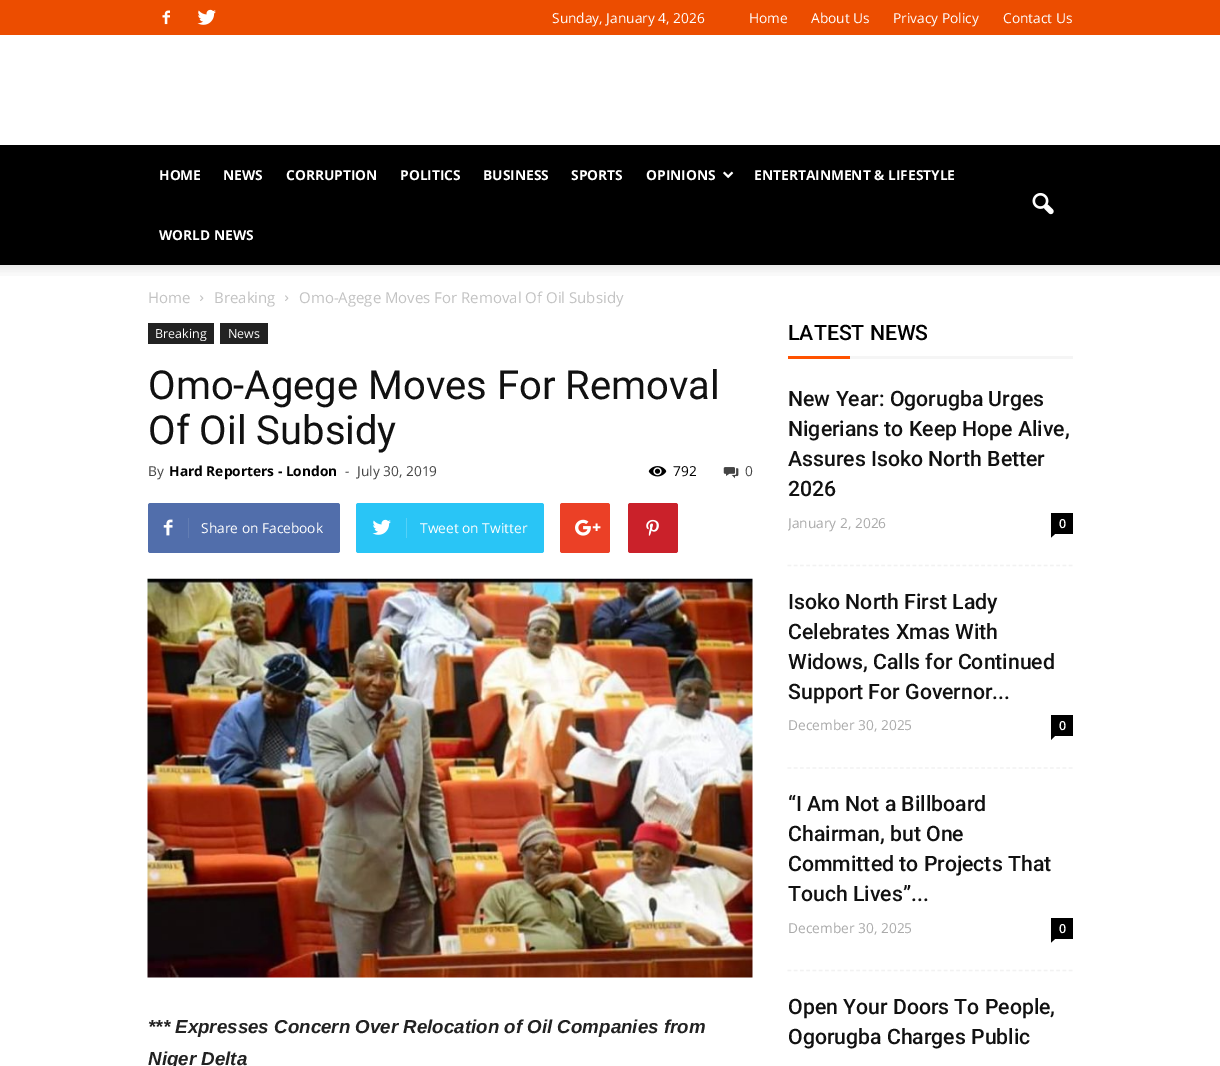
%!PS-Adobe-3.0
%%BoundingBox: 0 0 1220 1066
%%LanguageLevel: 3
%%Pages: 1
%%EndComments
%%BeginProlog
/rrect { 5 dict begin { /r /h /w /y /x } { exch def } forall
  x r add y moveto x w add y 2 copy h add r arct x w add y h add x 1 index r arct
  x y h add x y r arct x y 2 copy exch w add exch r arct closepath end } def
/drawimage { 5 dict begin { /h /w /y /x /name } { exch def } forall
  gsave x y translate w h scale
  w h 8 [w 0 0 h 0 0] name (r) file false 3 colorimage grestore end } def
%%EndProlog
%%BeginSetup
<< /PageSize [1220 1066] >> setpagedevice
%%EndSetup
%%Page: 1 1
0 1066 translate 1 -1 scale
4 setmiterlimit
1 setgray
0 0 1220 1066 rectfill
0.925 0.302 0 setrgbcolor
0 0 1220 35 rectfill
(images/1.raw) 162 10 8 15 drawimage
(images/2.raw) 197 9 19 16 drawimage
0 setgray
0 145 1220 120 rectfill
(images/3.raw) 723 171 11 8 drawimage
(images/4.raw) 1032 192 22 23 drawimage
(images/5.raw) 0 265 1220 11 drawimage
(images/6.raw) 200 295 4 6 drawimage
(images/6.raw) 285 295 4 6 drawimage
0.133 setgray
148 323 66 21 rectfill
220 323 48 21 rectfill
(images/7.raw) 648 466 19 11 drawimage
(images/8.raw) 723 467 16 12 drawimage
0.318 0.431 0.671 setrgbcolor
148 503 192 50 2.5 rrect fill
(images/9.raw) 163 519 10 17 drawimage
0.384 0.49 0.702 setrgbcolor
188 518 1 20 rectfill
0.161 0.773 0.965 setrgbcolor
356 503 188 50 2.5 rrect fill
(images/10.raw) 372 519 19 16 drawimage
0.329 0.82 0.973 setrgbcolor
406 518 1 20 rectfill
0.922 0.251 0.149 setrgbcolor
560 503 50 50 2.5 rrect fill
(images/11.raw) 575 519 26 17 drawimage
0.792 0.129 0.165 setrgbcolor
628 503 50 50 2.5 rrect fill
(images/12.raw) 646 519 13 17 drawimage
(images/13.raw) 147 578 606 400 drawimage
1 0.322 0 setrgbcolor
788 356 62 3 rectfill
0.961 setgray
850 356 223 3 rectfill
0.949 setgray
1.2 setlinewidth
[3.75 2.5] 0 setdash
newpath 787.5 565.5 moveto 1072.5 565.5 lineto stroke
0 setgray
1051 513 22 21 rectfill
newpath 1051 534 moveto 1055 534 lineto 1051 537.5 lineto closepath fill
0.949 setgray
newpath 787.5 768 moveto 1072.5 768 lineto stroke
0 setgray
1051 715 22 21 rectfill
newpath 1051 736 moveto 1055 736 lineto 1051 740 lineto closepath fill
0.949 setgray
newpath 787.5 970.5 moveto 1072.5 970.5 lineto stroke
0 setgray
1051 918 22 21 rectfill
newpath 1051 939 moveto 1055 939 lineto 1051 942.5 lineto closepath fill
/OpenSans-Regular [13.75 0 0 -13.75 0 0] selectfont
1 setgray
552 23 moveto (Sunday, January 4, 2026) show
749 23 moveto (Home) show
811 23 moveto (About Us) show
893 23 moveto (Privacy Policy) show
1003 23 moveto (Contact Us) show
/OpenSans-Bold [13.75 0 0 -13.75 0 0] selectfont
159 180 moveto (HOME) show
223 180 moveto (NEWS) show
286 180 moveto (CORRUPTION) show
400 180 moveto (POLITICS) show
483 180 moveto (BUSINESS) show
571 180 moveto (SPORTS) show
646 180 moveto (OPINIONS) show
754 180 moveto (ENTERTAINMENT & LIFESTYLE) show
159 240 moveto (WORLD NEWS) show
/OpenSans-Regular [15 0 0 -15 0 0] selectfont
0.765 setgray
148 303 moveto (Home) show
214 303 moveto (Breaking) show
299 303 moveto (Omo-Agege Moves For Removal Of Oil Subsidy) show
/OpenSans-Regular [12.5 0 0 -12.5 0 0] selectfont
1 setgray
155 338 moveto (Breaking) show
228 338 moveto (News) show
/Roboto-Regular [40 0 0 -40 0 0] selectfont
0.067 setgray
148 399 moveto (Omo-Agege Moves For Removal) show
148 444 moveto (Of Oil Subsidy) show
/OpenSans-Regular [13.75 0 0 -13.75 0 0] selectfont
0.267 setgray
148 476 moveto (By) show
/OpenSans-Bold [13.75 0 0 -13.75 0 0] selectfont
0 setgray
169 476 moveto (Hard Reporters - London) show
/OpenSans-Regular [13.75 0 0 -13.75 0 0] selectfont
0.267 setgray
345 476 moveto (-) show
357 476 moveto (July 30, 2019) show
0 setgray
673 476 moveto (792) show
0.267 setgray
745 476 moveto (0) show
1 setgray
201 533 moveto (Share on Facebook) show
420 533 moveto (Tweet on Twitter) show
/LiberationSans-BoldItalic [18.75 0 0 -18.75 0 0] selectfont
0.133 setgray
148 1033 moveto (*** Expresses Concern Over Relocation of Oil Companies from) show
148 1065 moveto (Niger Delta) show
/Roboto-Medium [21.25 0 0 -21.25 0 0] selectfont
0 setgray
788 340 moveto (LATEST NEWS) show
0.067 setgray
788 406 moveto (New Year: Ogorugba Urges) show
788 436 moveto (Nigerians to Keep Hope Alive,) show
788 466 moveto (Assures Isoko North Better) show
788 496 moveto (2026) show
gsave
788 323 285 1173 rectclip
/OpenSans-Regular [13.75 0 0 -13.75 0 0] selectfont
0.667 setgray
788 528 moveto (January 2, 2026) show
grestore
/OpenSans-SemiBold [12.5 0 0 -12.5 0 0] selectfont
1 setgray
1059 528 moveto (0) show
/Roboto-Medium [21.25 0 0 -21.25 0 0] selectfont
0.067 setgray
788 609 moveto (Isoko North First Lady) show
788 639 moveto (Celebrates Xmas With) show
788 669 moveto (Widows, Calls for Continued) show
788 699 moveto (Support For Governor...) show
/OpenSans-Regular [13.75 0 0 -13.75 0 0] selectfont
0.667 setgray
788 730 moveto (December 30, 2025) show
/OpenSans-SemiBold [12.5 0 0 -12.5 0 0] selectfont
1 setgray
1059 730 moveto (0) show
/Roboto-Medium [21.25 0 0 -21.25 0 0] selectfont
0.067 setgray
788 811 moveto (“I Am Not a Billboard) show
788 841 moveto (Chairman, but One) show
788 871 moveto (Committed to Projects That) show
788 901 moveto (Touch Lives”...) show
/OpenSans-Regular [13.75 0 0 -13.75 0 0] selectfont
0.667 setgray
788 933 moveto (December 30, 2025) show
/OpenSans-SemiBold [12.5 0 0 -12.5 0 0] selectfont
1 setgray
1059 933 moveto (0) show
/Roboto-Medium [21.25 0 0 -21.25 0 0] selectfont
0.067 setgray
788 1014 moveto (Open Your Doors To People,) show
788 1044 moveto (Ogorugba Charges Public) show
showpage
%%EOF
